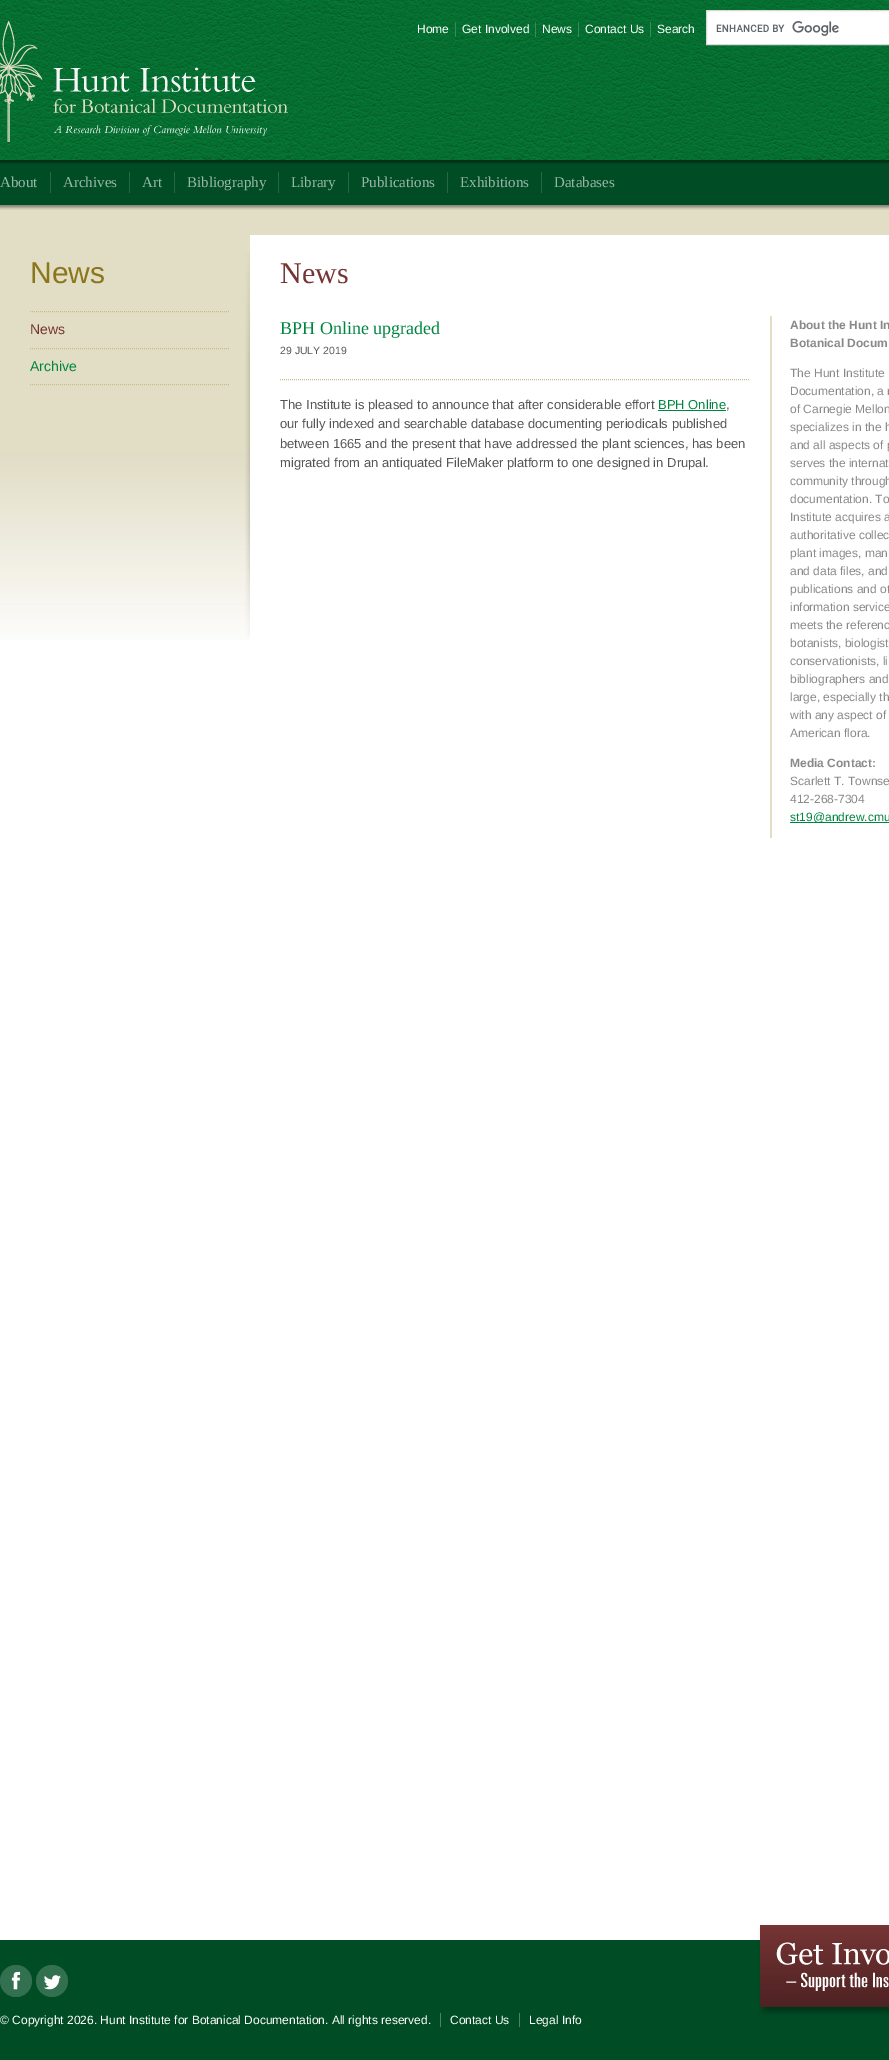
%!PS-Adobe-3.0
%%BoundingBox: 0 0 889 2060
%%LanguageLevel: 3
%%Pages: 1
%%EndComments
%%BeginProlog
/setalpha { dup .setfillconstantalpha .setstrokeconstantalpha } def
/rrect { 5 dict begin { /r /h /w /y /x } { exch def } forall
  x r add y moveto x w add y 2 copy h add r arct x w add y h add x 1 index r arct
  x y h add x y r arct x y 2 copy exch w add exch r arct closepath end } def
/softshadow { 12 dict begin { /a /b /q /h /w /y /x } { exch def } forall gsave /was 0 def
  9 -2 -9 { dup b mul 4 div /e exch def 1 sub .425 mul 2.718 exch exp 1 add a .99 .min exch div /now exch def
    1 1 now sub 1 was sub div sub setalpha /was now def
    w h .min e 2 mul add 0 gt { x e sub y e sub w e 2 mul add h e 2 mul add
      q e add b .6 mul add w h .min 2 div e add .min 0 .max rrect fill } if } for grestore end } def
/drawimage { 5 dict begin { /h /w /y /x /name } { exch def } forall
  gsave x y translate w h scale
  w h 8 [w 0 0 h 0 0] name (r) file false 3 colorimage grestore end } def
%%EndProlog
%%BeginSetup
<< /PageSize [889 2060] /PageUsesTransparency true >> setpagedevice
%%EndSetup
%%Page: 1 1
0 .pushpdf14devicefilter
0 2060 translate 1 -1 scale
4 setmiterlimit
1 setgray
0 0 889 2060 rectfill
(images/1.raw) 0 205 889 435 drawimage
(images/2.raw) 0 0 889 160 drawimage
(images/3.raw) 0 21 288 121 drawimage
0.2 setalpha
455 22 1 15 rectfill
535 22 1 15 rectfill
578 22 1 15 rectfill
650 22 1 15 rectfill
1 setalpha
newpath 706.5 10.5 moveto 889.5 10.5 lineto 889.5 44.5 lineto 706.5 44.5 lineto closepath gsave fill grestore
0.851 setgray
stroke
(images/4.raw) 716 21 123 15 drawimage
0 0.298 0.141 setrgbcolor
0 160 889 45 rectfill
(images/5.raw) 0 160 889 4 drawimage
0.149 0.404 0.271 setrgbcolor
50 172 1 21 rectfill
129 172 1 21 rectfill
174 172 1 21 rectfill
278 172 1 21 rectfill
348 172 1 21 rectfill
447 172 1 21 rectfill
541 172 1 21 rectfill
(images/6.raw) 0 205 889 5 drawimage
(images/7.raw) 245 253 5 384 drawimage
0.776 0.729 0.557 setrgbcolor
[1 1] 0 setdash
newpath 30 384.5 moveto 230 384.5 lineto stroke
newpath 30 311.5 moveto 230 311.5 lineto stroke
newpath 30 348.5 moveto 230 348.5 lineto stroke
1 setgray
250 235 639 405 rectfill
0.886 0.871 0.773 setrgbcolor
770 316 2 522 rectfill
0.776 0.729 0.557 setrgbcolor
newpath 280 379.5 moveto 750 379.5 lineto stroke
0 0.522 0.247 setrgbcolor
658 410 68 1 rectfill
790 822 99 1 rectfill
0 0.298 0.141 setrgbcolor
0 1940 889 120 rectfill
0.2 0.439 0.314 setrgbcolor
newpath 16 1981 16 0 360 arc closepath fill
(images/8.raw) 11 1971 10 19 drawimage
newpath 52 1981 16 0 360 arc closepath fill
(images/9.raw) 44 1975 17 15 drawimage
0.302 0.51 0.4 setrgbcolor
440 2013 1 14 rectfill
519 2013 1 14 rectfill
0 setgray
763 1930 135 82 0 3 0.3 softshadow
(images/10.raw) 760 1925 129 82 drawimage
/LiberationSans-Regular [12 0 0 -12 0 0] selectfont
1 setgray
417 33 moveto (Home) show
462 33 moveto (Get Involved) show
542 33 moveto (News) show
585 33 moveto (Contact Us) show
657 33 moveto (Search) show
/LiberationSerif-Regular [15 0 0 -15 0 0] selectfont
0.6 0.718 0.655 setrgbcolor
0 187 moveto (About) show
63 187 moveto (Archives) show
142 187 moveto (Art) show
187 187 moveto (Bibliography) show
291 187 moveto (Library) show
361 187 moveto (Publications) show
460 187 moveto (Exhibitions) show
554 187 moveto (Databases) show
/LiberationSans-Regular [30 0 0 -30 0 0] selectfont
0.549 0.463 0.11 setrgbcolor
30 283 moveto (News) show
/LiberationSans-Regular [14 0 0 -14 0 0] selectfont
0.459 0.208 0.208 setrgbcolor
30 334 moveto (News) show
0 0.522 0.247 setrgbcolor
30 371 moveto (Archive) show
/LiberationSerif-Regular [30 0 0 -30 0 0] selectfont
0.459 0.208 0.208 setrgbcolor
280 283 moveto (News) show
/LiberationSerif-Regular [18 0 0 -18 0 0] selectfont
0 0.522 0.247 setrgbcolor
280 334 moveto (BPH Online upgraded) show
/LiberationSans-Regular [10.5 0 0 -10.5 0 0] selectfont
0.333 setgray
280 354 moveto (29 JULY 2019) show
/LiberationSans-Regular [13 0 0 -13 0 0] selectfont
280 409 moveto (The Institute is pleased to announce that after considerable effort) show
0 0.522 0.247 setrgbcolor
658 409 moveto (BPH Online) show
0.333 setgray
726 409 moveto (,) show
280 428 moveto (our fully indexed and searchable database documenting periodicals published) show
280 448 moveto (between 1665 and the present that have addressed the plant sciences, has been) show
280 467 moveto (migrated from an antiquated FileMaker platform to one designed in Drupal.) show
/LiberationSans-Bold [12 0 0 -12 0 0] selectfont
0.537 setgray
790 329 moveto (About the Hunt In) show
790 347 moveto (Botanical Docum) show
/LiberationSans-Regular [12 0 0 -12 0 0] selectfont
790 377 moveto (The Hunt Institute) show
790 395 moveto (Documentation, a r) show
790 413 moveto (of Carnegie Mellon) show
790 431 moveto (specializes in the h) show
790 449 moveto (and all aspects of p) show
790 467 moveto (serves the internat) show
790 485 moveto (community through) show
790 503 moveto (documentation. To) show
790 521 moveto (Institute acquires a) show
790 539 moveto (authoritative collec) show
790 557 moveto (plant images, man) show
790 575 moveto (and data files, and) show
790 593 moveto (publications and ot) show
790 611 moveto (information service) show
790 629 moveto (meets the referenc) show
790 647 moveto (botanists, biologist) show
790 665 moveto (conservationists, li) show
790 683 moveto (bibliographers and) show
790 701 moveto (large, especially th) show
790 719 moveto (with any aspect of) show
790 737 moveto (American flora.) show
/LiberationSans-Bold [12 0 0 -12 0 0] selectfont
790 767 moveto (Media Contact:) show
/LiberationSans-Regular [12 0 0 -12 0 0] selectfont
790 785 moveto (Scarlett T. Townse) show
790 803 moveto (412-268-7304) show
0 0.522 0.247 setrgbcolor
790 821 moveto (st19@andrew.cmu) show
1 setgray
0 2024 moveto (© Copyright 2026. Hunt Institute for Botanical Documentation. All rights reserved.) show
450 2024 moveto (Contact Us) show
529 2024 moveto (Legal Info) show
.poppdf14devicefilter showpage
%%EOF
